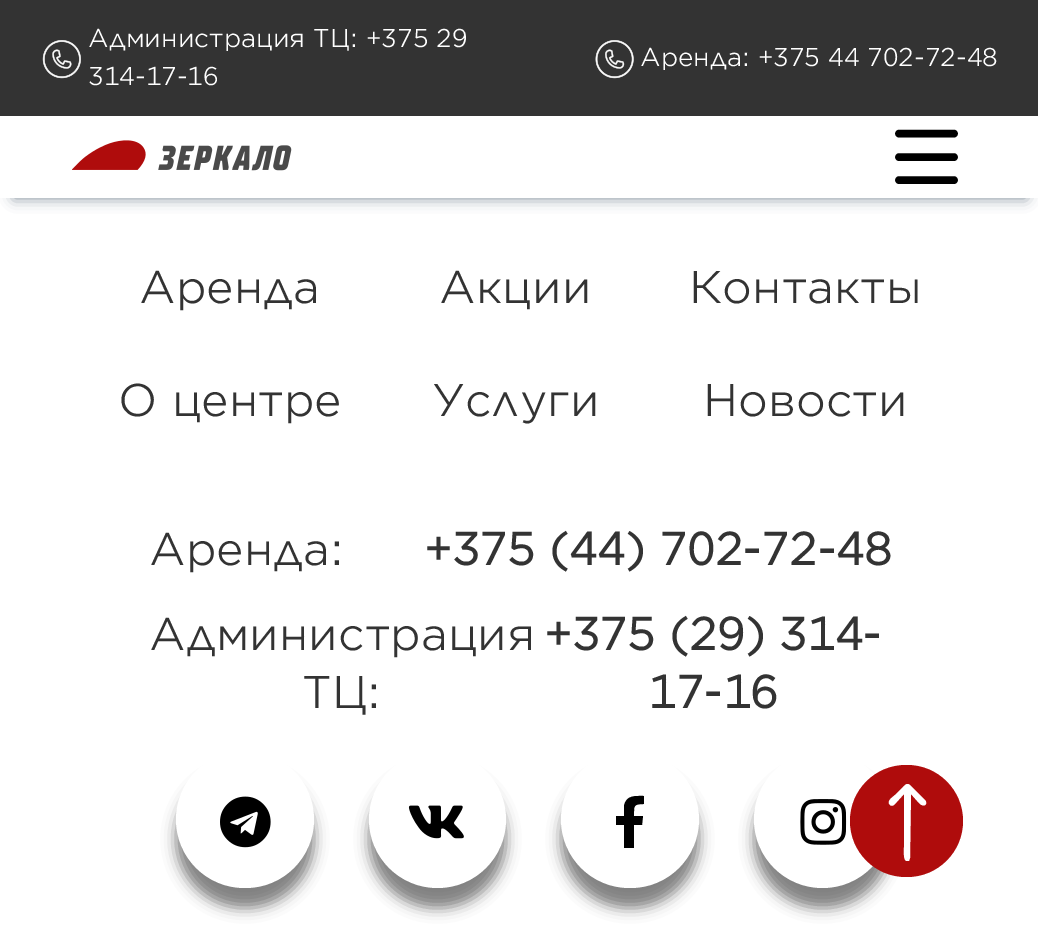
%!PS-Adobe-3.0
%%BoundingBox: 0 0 1038 952
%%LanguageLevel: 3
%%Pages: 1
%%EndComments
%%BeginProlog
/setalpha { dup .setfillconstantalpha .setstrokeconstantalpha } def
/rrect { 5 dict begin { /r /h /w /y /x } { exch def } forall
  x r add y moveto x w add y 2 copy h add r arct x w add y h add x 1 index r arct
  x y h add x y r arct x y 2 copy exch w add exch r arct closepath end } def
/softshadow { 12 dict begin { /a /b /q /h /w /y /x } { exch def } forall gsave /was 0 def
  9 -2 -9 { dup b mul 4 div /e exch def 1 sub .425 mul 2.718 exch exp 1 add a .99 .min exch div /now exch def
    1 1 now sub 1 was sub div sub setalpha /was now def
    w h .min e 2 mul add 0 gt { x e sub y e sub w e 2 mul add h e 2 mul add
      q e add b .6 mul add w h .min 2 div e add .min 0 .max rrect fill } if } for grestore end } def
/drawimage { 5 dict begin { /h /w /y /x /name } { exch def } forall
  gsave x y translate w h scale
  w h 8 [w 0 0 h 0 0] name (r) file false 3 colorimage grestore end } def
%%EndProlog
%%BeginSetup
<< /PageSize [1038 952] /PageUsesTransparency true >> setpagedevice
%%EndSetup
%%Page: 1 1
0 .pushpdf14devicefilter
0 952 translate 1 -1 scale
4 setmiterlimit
1 setgray
0 0 1038 952 rectfill
0.133 0.235 0.314 setrgbcolor
14 28 1012 170 0 7 0.6 softshadow
1 setgray
0 116 1038 82 rectfill
0.2 setgray
0 0 1038 116 rectfill
(images/1.raw) 42 40 39 39 drawimage
(images/2.raw) 595 40 39 39 drawimage
(images/3.raw) 72 140 220 31 drawimage
0 setgray
7.6 setlinewidth
1 setlinecap
newpath 899 133.5 moveto 954 133.5 lineto 899 157 moveto 954 157 lineto 899 180 moveto 954 180 lineto stroke
176 770 138 138 69 7 0.5 softshadow
1 setgray
176 751 138 137 68.5 rrect fill
(images/4.raw) 220 796 51 52 drawimage
0 setgray
369 770 137 138 68.5 7 0.5 softshadow
1 setgray
newpath 437.5 819.5 68.5 0 360 arc closepath fill
(images/5.raw) 408 805 56 34 drawimage
0 setgray
561 770 138 138 69 7 0.5 softshadow
1 setgray
561 751 138 137 68.5 rrect fill
0 setgray
newpath 642 825 moveto 634 825 lineto 634 848 lineto 624 848 lineto 624 825 lineto 616 825 lineto 616 816 lineto 624 816 lineto 624 806 lineto 626 795 635 796 644 796 curveto 644 804 lineto 633 804 634 806 634 816 curveto 643 816 lineto closepath fill
754 770 137 138 68.5 7 0.5 softshadow
1 setgray
newpath 822.5 819.5 68.5 0 360 arc closepath fill
(images/6.raw) 800 799 47 46 drawimage
0.686 0.047 0.047 setrgbcolor
850 765 113 112 56 rrect fill
gsave
869 784 77 77 rectclip
1 setgray
newpath 925 800 moveto 912 787 lineto 908 783 907 783 903 787 curveto 895 795 lineto 893 797 886 801 890 805 curveto 891 806 892 806 894 805 curveto 904 794 lineto 904 847 lineto 904 854 903 863 909 861 curveto 910 858 lineto 911 794 lineto 919 803 lineto 925 809 928 803 925 800 curveto closepath fill
grestore
/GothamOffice-Regular [24.75 0 0 -24.75 0 0] selectfont
1 setgray
88 47 moveto (Администрация ТЦ: +375 29) show
88 85 moveto (314-17-16) show
640 66 moveto (Аренда: +375 44 702-72-48) show
/GothamOffice-Regular [44 0 0 -44 0 0] selectfont
0.2 setgray
139 303 moveto (Аренда) show
118 416 moveto (О центре) show
439 303 moveto (Акции) show
432 416 moveto (Услуги) show
689 303 moveto (Контакты) show
703 416 moveto (Новости) show
149 565 moveto (Аренда:) show
/GothamOffice-Bold [44 0 0 -44 0 0] selectfont
424 565 moveto (+375 \(44\) 702-72-48) show
/GothamOffice-Regular [44 0 0 -44 0 0] selectfont
149 650 moveto (Администрация) show
/GothamOffice-Bold [44 0 0 -44 0 0] selectfont
544 650 moveto (+375 \(29\) 314-) show
648 708 moveto (17-16) show
/GothamOffice-Regular [44 0 0 -44 0 0] selectfont
302 708 moveto (ТЦ:) show
.poppdf14devicefilter showpage
%%EOF
